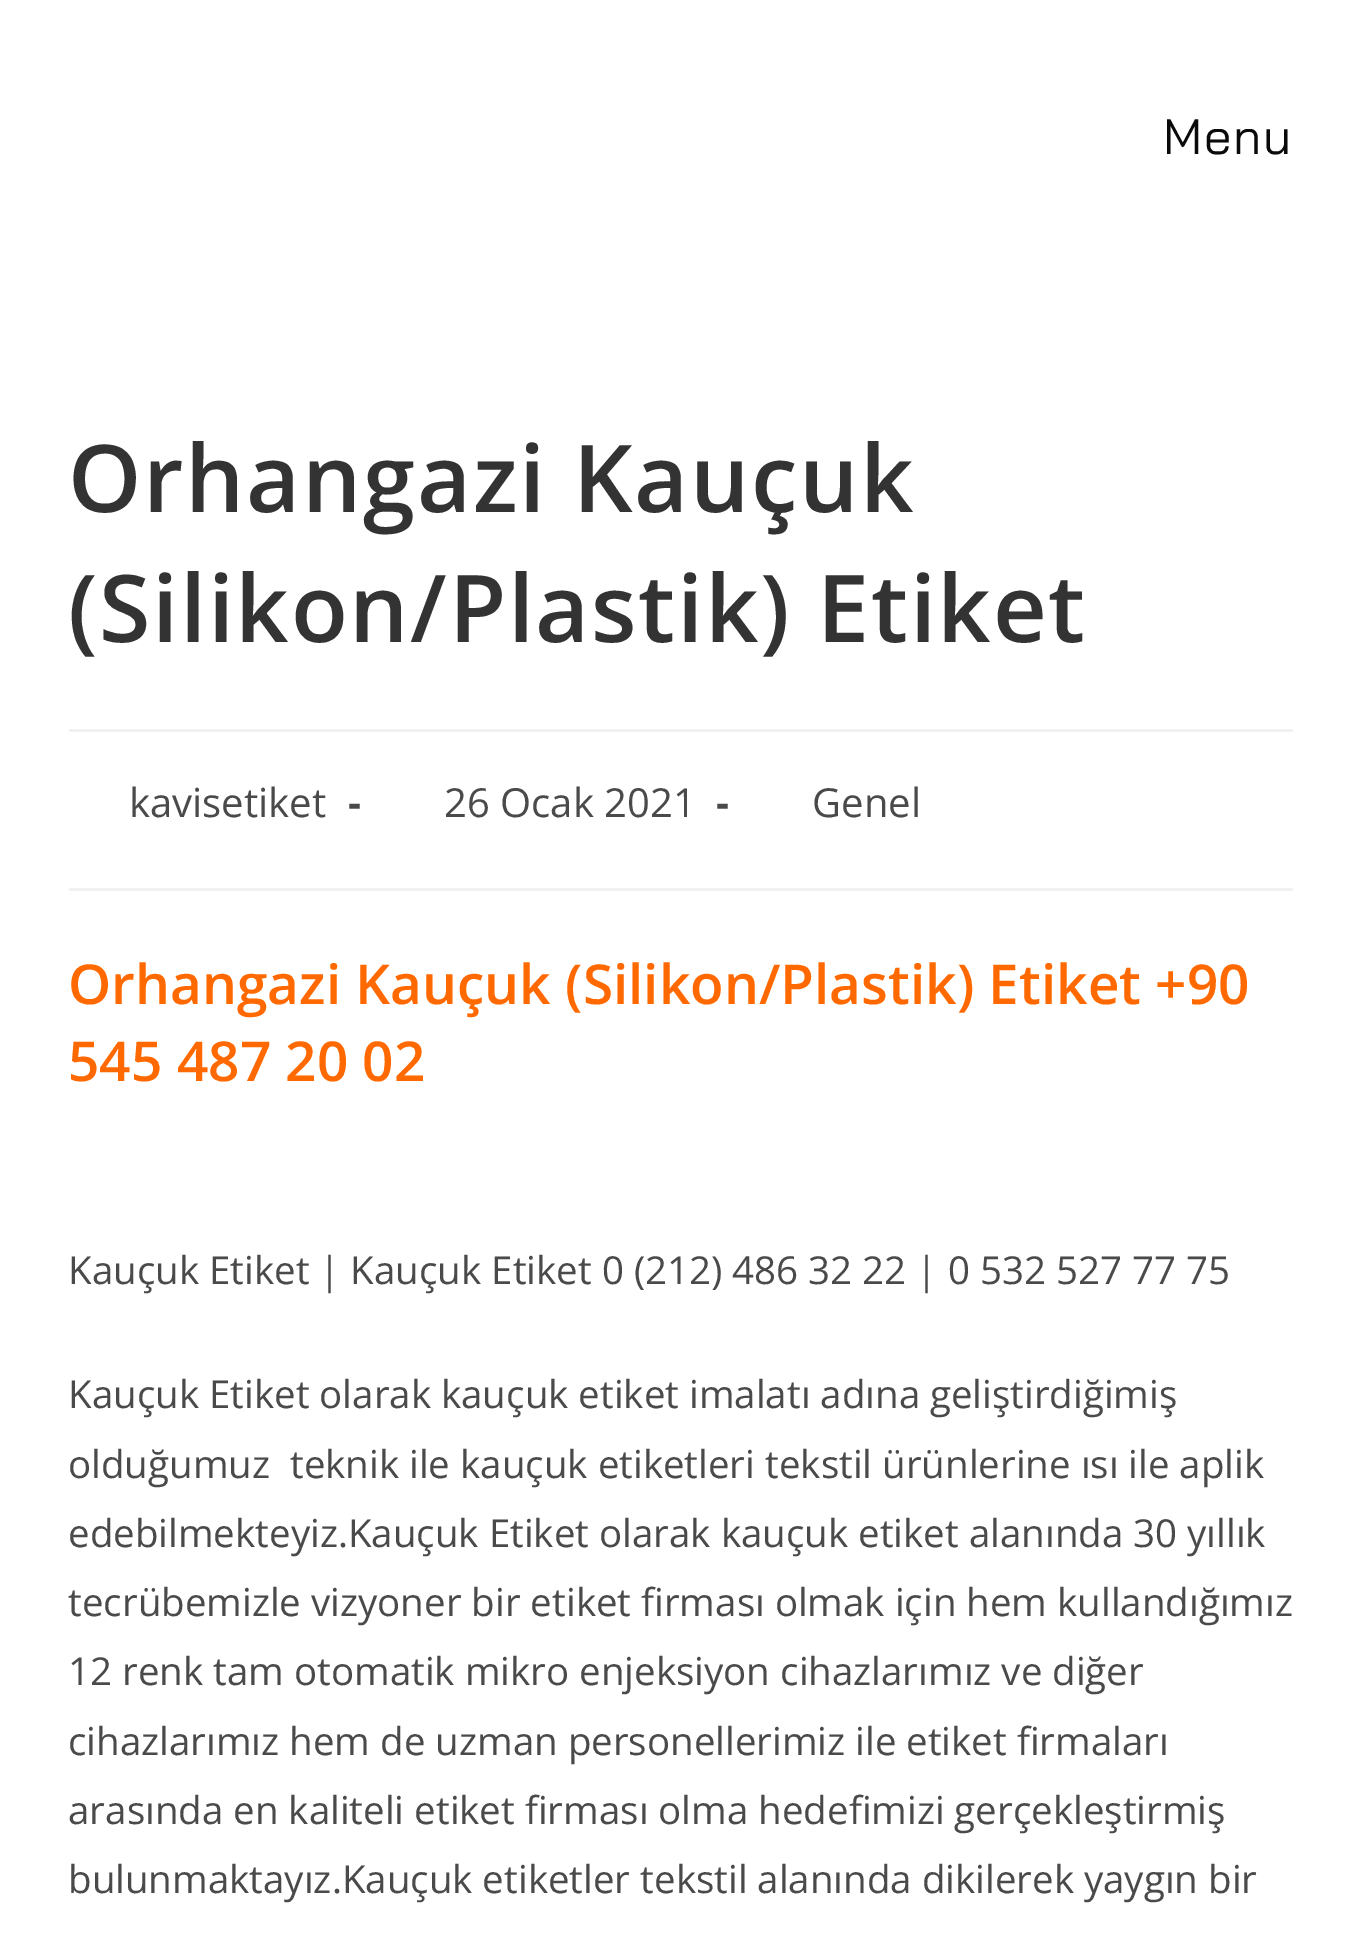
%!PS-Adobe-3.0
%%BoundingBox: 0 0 1359 1951
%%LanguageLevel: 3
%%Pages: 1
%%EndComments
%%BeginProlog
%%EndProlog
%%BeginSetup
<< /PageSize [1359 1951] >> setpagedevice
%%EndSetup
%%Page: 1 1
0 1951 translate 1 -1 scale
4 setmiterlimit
1 setgray
0 0 1359 1951 rectfill
0.945 setgray
69 729 1224 3 rectfill
69 888 1224 3 rectfill
/BaiJamjuree-Regular [49.5 0 0 -49.5 0 0] selectfont
0.039 setgray
1163 154 moveto 1.65 0 (Menu) ashow
/OpenSans-SemiBold [93.5 0 0 -93.5 0 0] selectfont
0.2 setgray
68 512 moveto 1.65 0 (Orhangazi Kauçuk) ashow
68 642 moveto 1.65 0 (\(Silikon/Plastik\) Etiket) ashow
/OpenSans-Regular [40 0 0 -40 0 0] selectfont
0.29 setgray
129 817 moveto (kavisetiket) show
/OpenSans-Bold [40 0 0 -40 0 0] selectfont
348 817 moveto (-) show
/OpenSans-Regular [40 0 0 -40 0 0] selectfont
444 817 moveto (26 Ocak 2021) show
/OpenSans-Bold [40 0 0 -40 0 0] selectfont
716 817 moveto (-) show
/OpenSans-Regular [40 0 0 -40 0 0] selectfont
812 817 moveto (Genel) show
/OpenSans-SemiBold [55 0 0 -55 0 0] selectfont
1 0.412 0 setrgbcolor
68 1004 moveto (Orhangazi Kauçuk \(Silikon/Plastik\) Etiket +90) show
68 1081 moveto (545 487 20 02) show
/OpenSans-Regular [38.5 0 0 -38.5 0 0] selectfont
0.29 setgray
68 1284 moveto (Kauçuk Etiket | Kauçuk Etiket 0 \(212\) 486 32 22 | 0 532 527 77 75) show
68 1408 moveto (Kauçuk Etiket olarak kauçuk etiket imalatı adına geliştirdiğimiş) show
68 1478 moveto (olduğumuz  teknik ile kauçuk etiketleri tekstil ürünlerine ısı ile aplik) show
68 1547 moveto (edebilmekteyiz.Kauçuk Etiket olarak kauçuk etiket alanında 30 yıllık) show
68 1616 moveto (tecrübemizle vizyoner bir etiket firması olmak için hem kullandığımız) show
68 1685 moveto (12 renk tam otomatik mikro enjeksiyon cihazlarımız ve diğer) show
68 1755 moveto (cihazlarımız hem de uzman personellerimiz ile etiket firmaları) show
68 1824 moveto (arasında en kaliteli etiket firması olma hedefimizi gerçekleştirmiş) show
68 1893 moveto (bulunmaktayız.Kauçuk etiketler tekstil alanında dikilerek yaygın bir) show
showpage
%%EOF
